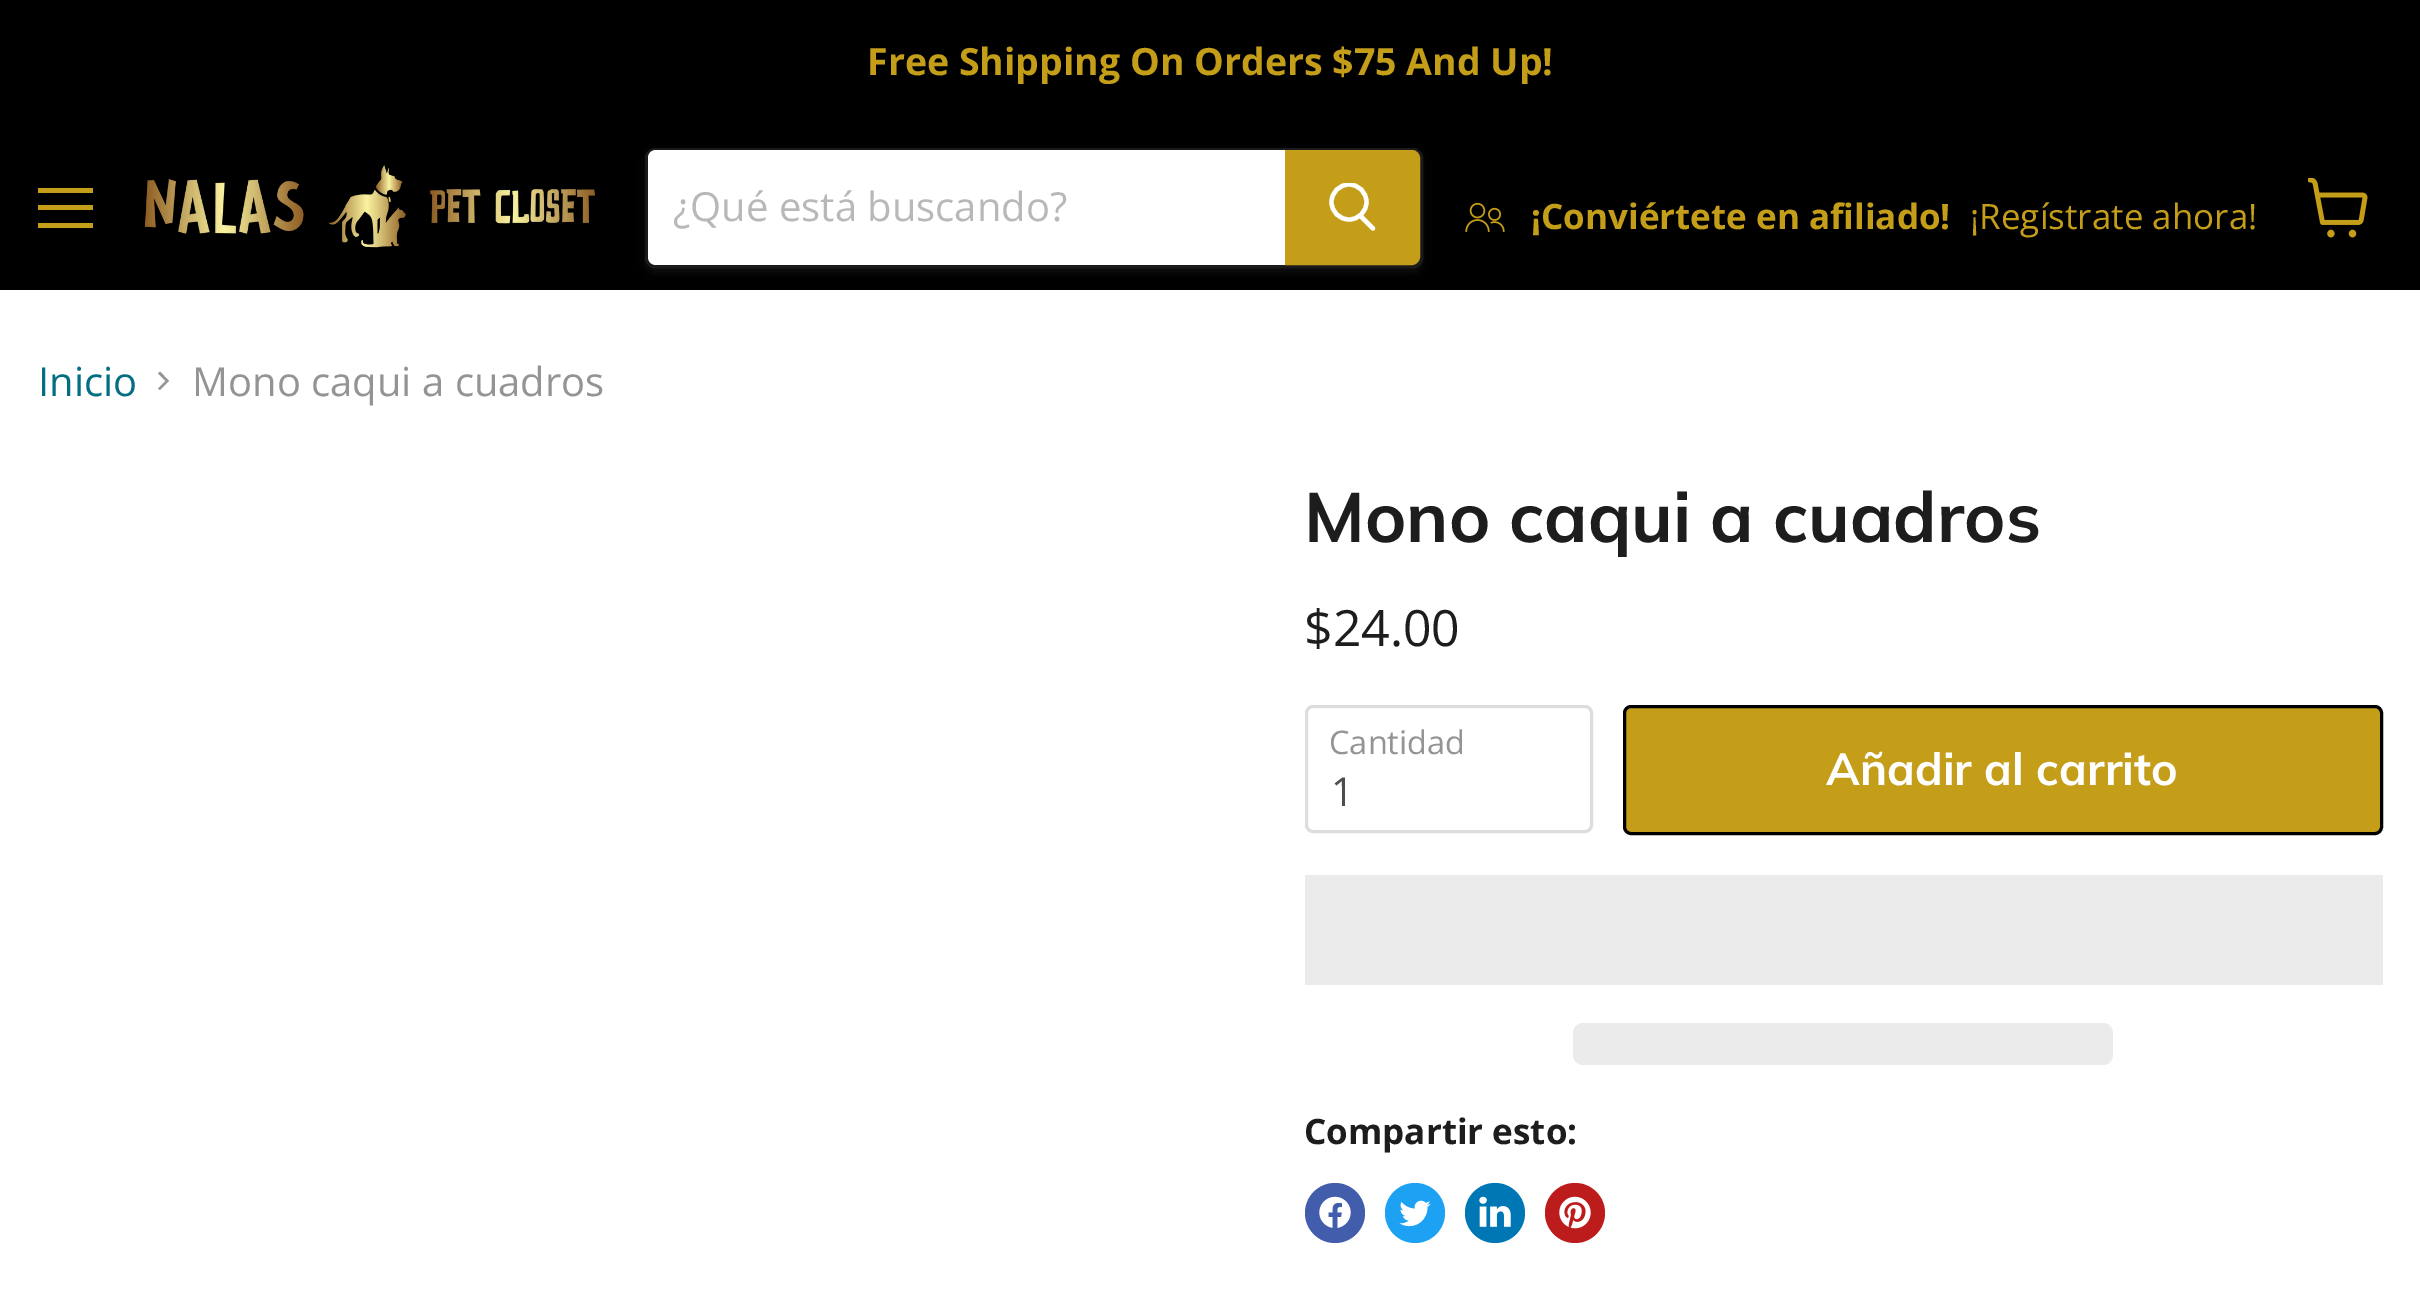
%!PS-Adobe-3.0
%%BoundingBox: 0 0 2420 1309
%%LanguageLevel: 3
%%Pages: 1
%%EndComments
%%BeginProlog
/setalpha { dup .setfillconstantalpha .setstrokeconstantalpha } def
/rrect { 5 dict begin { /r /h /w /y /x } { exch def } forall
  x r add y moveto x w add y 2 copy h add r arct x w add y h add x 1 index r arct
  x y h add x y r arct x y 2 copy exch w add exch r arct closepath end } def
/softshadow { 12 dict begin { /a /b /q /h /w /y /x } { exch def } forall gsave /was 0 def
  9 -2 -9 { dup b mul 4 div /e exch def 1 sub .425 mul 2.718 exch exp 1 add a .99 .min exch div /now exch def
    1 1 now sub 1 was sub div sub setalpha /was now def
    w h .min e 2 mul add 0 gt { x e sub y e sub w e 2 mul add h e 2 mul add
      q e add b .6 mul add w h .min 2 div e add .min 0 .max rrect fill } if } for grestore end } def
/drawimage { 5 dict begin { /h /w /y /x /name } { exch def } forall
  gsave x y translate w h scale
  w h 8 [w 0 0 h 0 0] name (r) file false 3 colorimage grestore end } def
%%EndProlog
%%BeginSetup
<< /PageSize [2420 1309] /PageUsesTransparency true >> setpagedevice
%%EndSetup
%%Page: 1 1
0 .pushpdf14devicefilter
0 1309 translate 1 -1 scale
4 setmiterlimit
1 setgray
0 0 2420 1309 rectfill
0 setgray
0 0 2420 290 rectfill
0.769 0.616 0.098 setrgbcolor
38 188 55 5 rectfill
38 205 55 5 rectfill
38 223 55 5 rectfill
(images/1.raw) 144 165 451 83 drawimage
gsave
newpath 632 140 moveto 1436 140 lineto 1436 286 lineto 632 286 lineto closepath 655 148 moveto 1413 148 lineto 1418.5 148 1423 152.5 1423 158 curveto 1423 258 lineto 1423 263.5 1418.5 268 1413 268 curveto 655 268 lineto 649.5 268 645 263.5 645 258 curveto 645 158 lineto 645 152.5 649.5 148 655 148 curveto closepath eoclip newpath
0.502 setgray
645 153 778 120 10 4 0.11 softshadow
grestore
0.2 setalpha
0.502 setgray
3 setlinewidth
646.5 149.5 775 117 8.5 rrect stroke
1 setalpha
1 setgray
newpath 656 150 moveto 1285 150 lineto 1285 265 lineto 656 265 lineto 651.5 265 648 261.5 648 257 curveto 648 158 lineto 648 153.5 651.5 150 656 150 curveto closepath fill
0.769 0.616 0.098 setrgbcolor
newpath 1286.5 151.5 moveto 1412 151.5 lineto 1415.5 151.5 1418.5 154.5 1418.5 158 curveto 1418.5 257 lineto 1418.5 260.5 1415.5 263.5 1412 263.5 curveto 1286.5 263.5 lineto closepath gsave fill grestore
stroke
1 setgray
4.3 setlinewidth
1 setlinecap
newpath 1373 228.5 moveto 1361 216.5 lineto stroke
gsave
1328 183 50 52 rectclip
0 setlinecap
newpath 1349 202 17.5 0 360 arc closepath stroke
grestore
(images/2.raw) 1465 202 40 31 drawimage
(images/3.raw) 2308 178 60 60 drawimage
0.58 setgray
newpath 158 388.5 moveto 160 390 lineto 169 381 lineto 160 371.5 lineto 158 373.5 lineto 165.5 381 lineto closepath eofill
0.867 setgray
3 setlinewidth
0 setlinecap
1306.5 706.5 285 125 6.5 rrect stroke
0.769 0.616 0.098 setrgbcolor
1624.5 706.5 757 127 6.5 rrect gsave fill grestore
0 setgray
stroke
0.922 setgray
1305 875 1078 110 rectfill
1573 1023 540 42 10 rrect fill
0.259 0.365 0.671 setrgbcolor
newpath 1335 1213 30 0 360 arc closepath fill
(images/4.raw) 1319 1196 32 32 drawimage
0.114 0.631 0.949 setrgbcolor
newpath 1415 1213 30 0 360 arc closepath fill
(images/5.raw) 1399 1200 32 27 drawimage
0 0.467 0.71 setrgbcolor
newpath 1495 1213 30 0 360 arc closepath fill
(images/6.raw) 1479 1196 32 31 drawimage
0.741 0.11 0.11 setrgbcolor
newpath 1575 1213 30 0 360 arc closepath fill
(images/7.raw) 1559 1196 32 33 drawimage
/OpenSans-Bold [37.5 0 0 -37.5 0 0] selectfont
0.769 0.616 0.098 setrgbcolor
867 75 moveto (Free Shipping On Orders $75 And Up!) show
/OpenSans-Regular [40 0 0 -40 0 0] selectfont
0.722 setgray
673 221 moveto (¿Qué está buscando?) show
/OpenSans-Bold [35 0 0 -35 0 0] selectfont
0.769 0.616 0.098 setrgbcolor
1531 229 moveto (¡Conviértete en afiliado!) show
/OpenSans-Regular [35 0 0 -35 0 0] selectfont
1970 229 moveto (¡Regístrate ahora!) show
/OpenSans-Regular [40 0 0 -40 0 0] selectfont
0.016 0.431 0.51 setrgbcolor
38 396 moveto (Inicio) show
0.58 setgray
192 396 moveto (Mono caqui a cuadros) show
/Muli-Bold [70 0 0 -70 0 0] selectfont
0.114 setgray
1304 542 moveto (Mono caqui a cuadros) show
/OpenSans-Regular [50 0 0 -50 0 0] selectfont
1304 646 moveto ($24.00) show
/OpenSans-Regular [32.5 0 0 -32.5 0 0] selectfont
0.58 setgray
1329 754 moveto (Cantidad) show
/OpenSans-Regular [40 0 0 -40 0 0] selectfont
0.302 setgray
1331 806 moveto (1) show
/Muli-Bold [45 0 0 -45 0 0] selectfont
1 setgray
1826 785 moveto (Añadir al carrito) show
/OpenSans-Bold [35 0 0 -35 0 0] selectfont
0.114 setgray
1304 1144 moveto (Compartir esto:) show
.poppdf14devicefilter showpage
%%EOF
